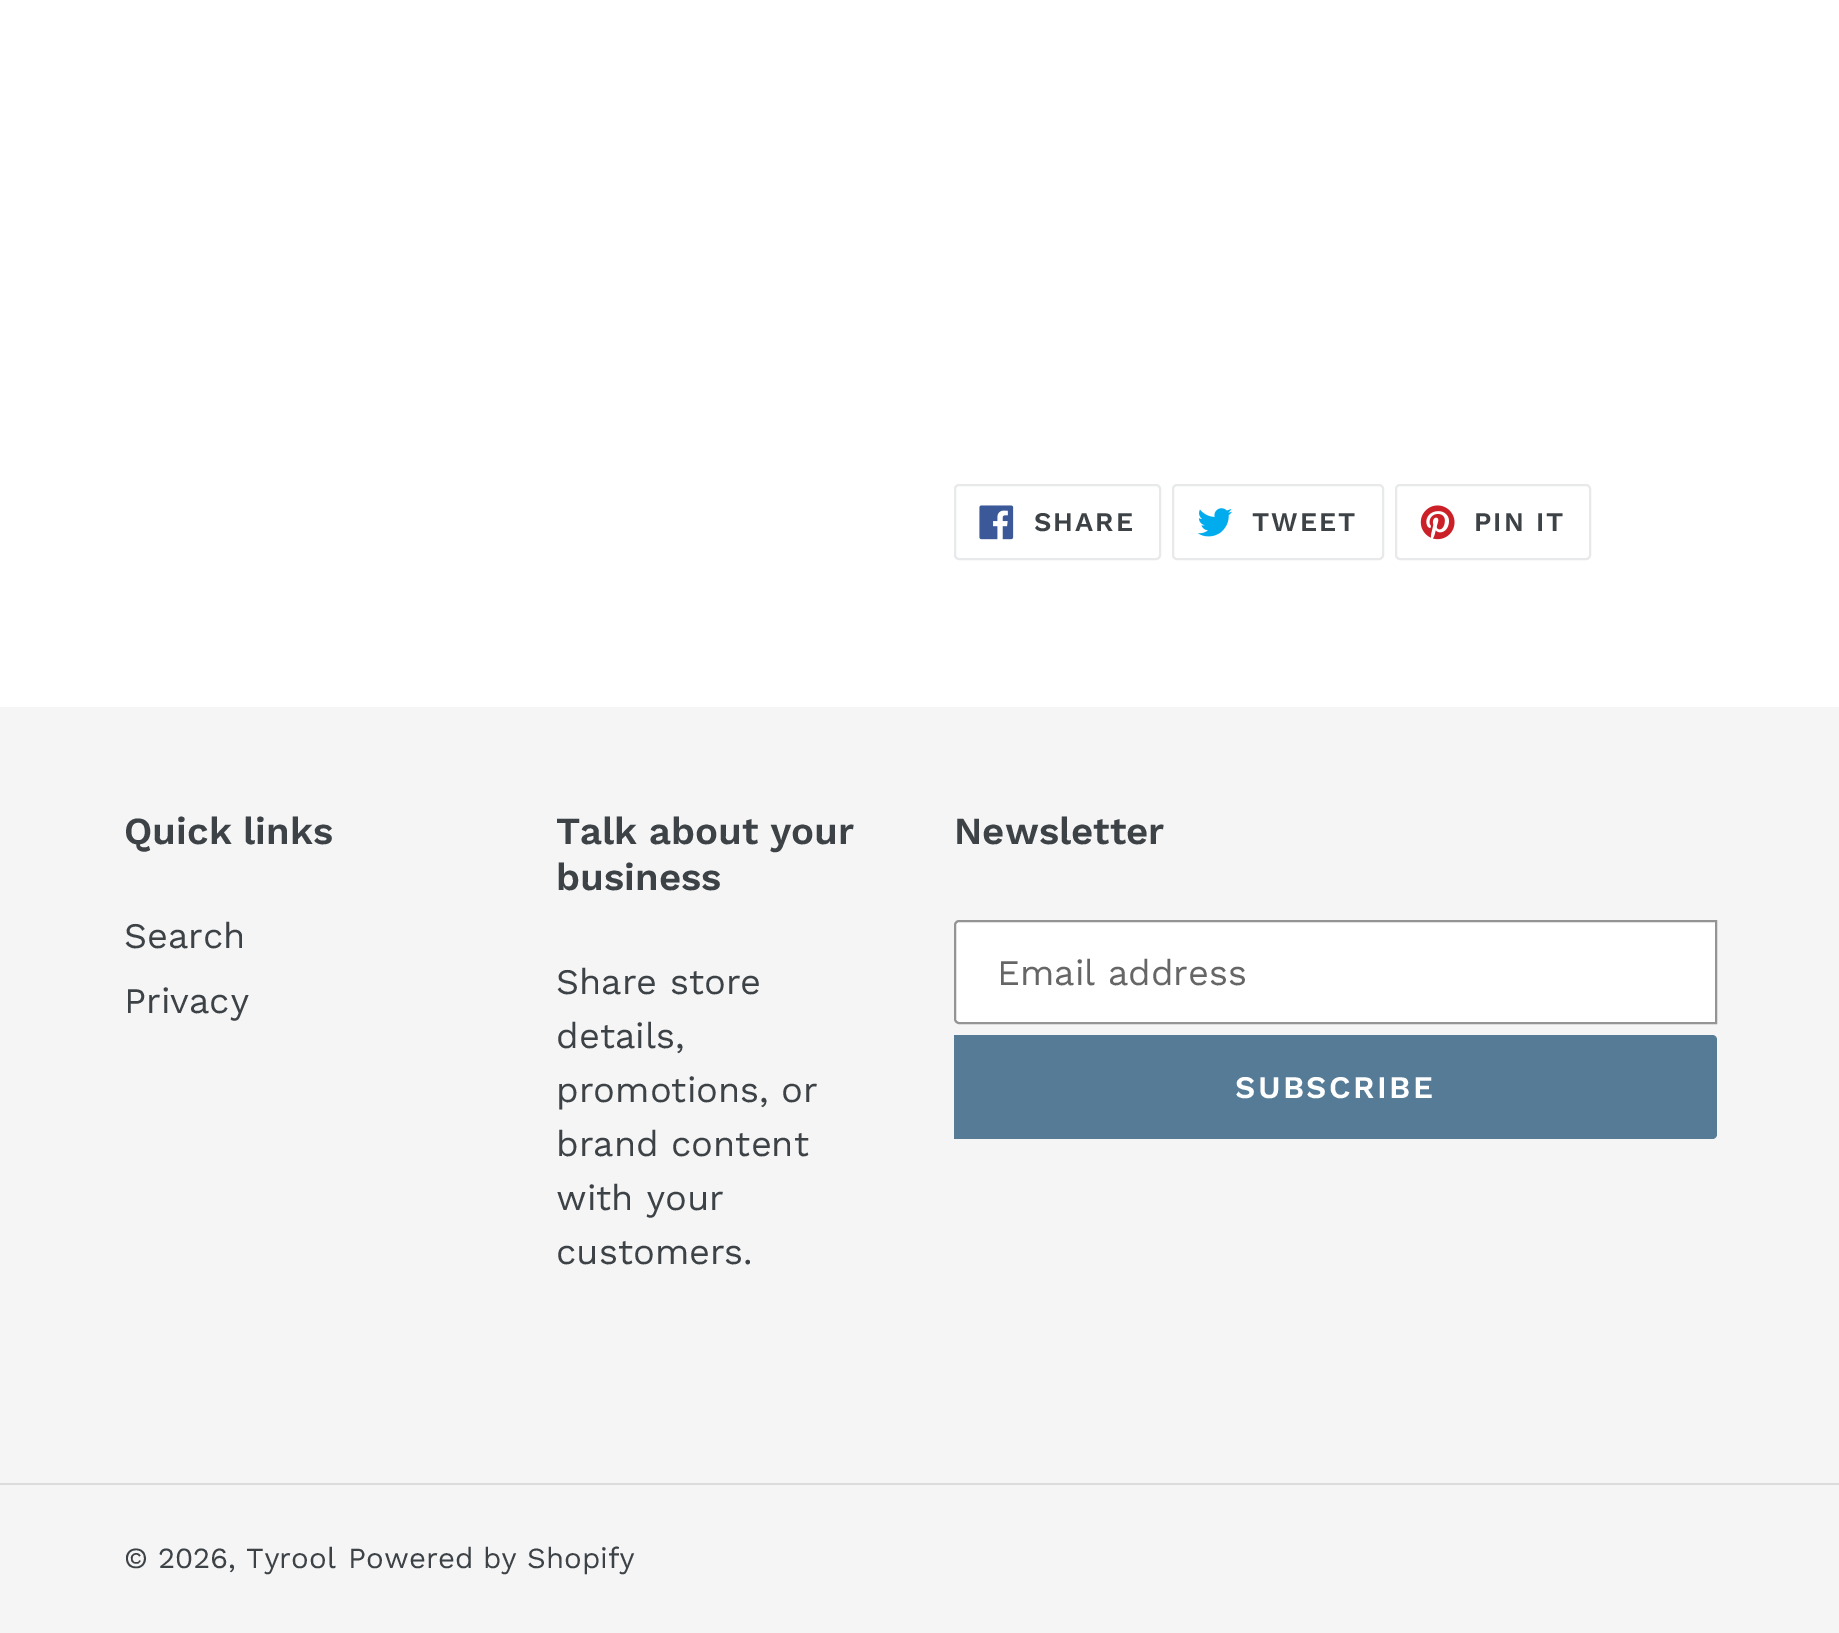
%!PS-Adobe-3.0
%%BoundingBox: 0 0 1839 1633
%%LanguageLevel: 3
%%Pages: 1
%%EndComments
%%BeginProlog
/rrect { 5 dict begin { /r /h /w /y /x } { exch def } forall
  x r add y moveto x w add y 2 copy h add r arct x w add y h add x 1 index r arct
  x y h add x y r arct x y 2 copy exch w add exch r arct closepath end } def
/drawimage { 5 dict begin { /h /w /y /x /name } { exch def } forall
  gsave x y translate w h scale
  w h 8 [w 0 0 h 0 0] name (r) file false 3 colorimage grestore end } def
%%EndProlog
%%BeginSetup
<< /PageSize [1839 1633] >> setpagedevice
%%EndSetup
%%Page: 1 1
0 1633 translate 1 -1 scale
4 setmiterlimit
1 setgray
0 0 1839 1633 rectfill
0.91 0.914 0.922 setrgbcolor
2 setlinewidth
955 485 205 74 4 rrect stroke
(images/1.raw) 979 505 35 35 drawimage
1173 485 210 74 4 rrect stroke
(images/2.raw) 1197 508 35 29 drawimage
1396 485 194 74 4 rrect stroke
(images/3.raw) 1420 505 35 35 drawimage
0.961 setgray
0 707 1839 926 rectfill
1 setgray
newpath 959 921 moveto 1716 921 lineto 1716 1023 lineto 959 1023 lineto 957 1023 955 1021 955 1019 curveto 955 925 lineto 955 923 957 921 959 921 curveto closepath gsave fill grestore
0.58 setgray
stroke
0.333 0.482 0.592 setrgbcolor
newpath 954 1035 moveto 1712 1035 lineto 1715 1035 1717 1037 1717 1040 curveto 1717 1134 lineto 1717 1137 1715 1139 1712 1139 curveto 954 1139 lineto closepath fill
0.863 setgray
0 1483 1839 2 rectfill
/WorkSans-SemiBold [27 0 0 -27 0 0] selectfont
0.239 0.259 0.275 setrgbcolor
1034 531 moveto 2 0 (SHARE) ashow
1252 531 moveto 2 0 (TWEET) ashow
1474 531 moveto 2 0 (PIN IT) ashow
/WorkSans-SemiBold [38.25 0 0 -38.25 0 0] selectfont
124 844 moveto (Quick links) show
/WorkSans-Regular [36 0 0 -36 0 0] selectfont
124 948 moveto (Search) show
124 1013 moveto (Privacy) show
/WorkSans-SemiBold [38.25 0 0 -38.25 0 0] selectfont
556 844 moveto (Talk about your) show
556 890 moveto (business) show
/WorkSans-Regular [36 0 0 -36 0 0] selectfont
556 994 moveto (Share store) show
556 1048 moveto (details,) show
556 1102 moveto (promotions, or) show
556 1156 moveto (brand content) show
556 1210 moveto (with your) show
556 1264 moveto (customers.) show
/WorkSans-SemiBold [38.25 0 0 -38.25 0 0] selectfont
954 844 moveto (Newsletter) show
/WorkSans-Regular [36 0 0 -36 0 0] selectfont
0.4 setgray
997 985 moveto (Email address) show
/WorkSans-SemiBold [31.5 0 0 -31.5 0 0] selectfont
1 setgray
1235 1098 moveto 2.5 0 (SUBSCRIBE) ashow
/WorkSans-Regular [29.25 0 0 -29.25 0 0] selectfont
0.239 0.259 0.275 setrgbcolor
124 1568 moveto (© 2026, Tyrool) show
348 1568 moveto (Powered by Shopify) show
showpage
%%EOF
